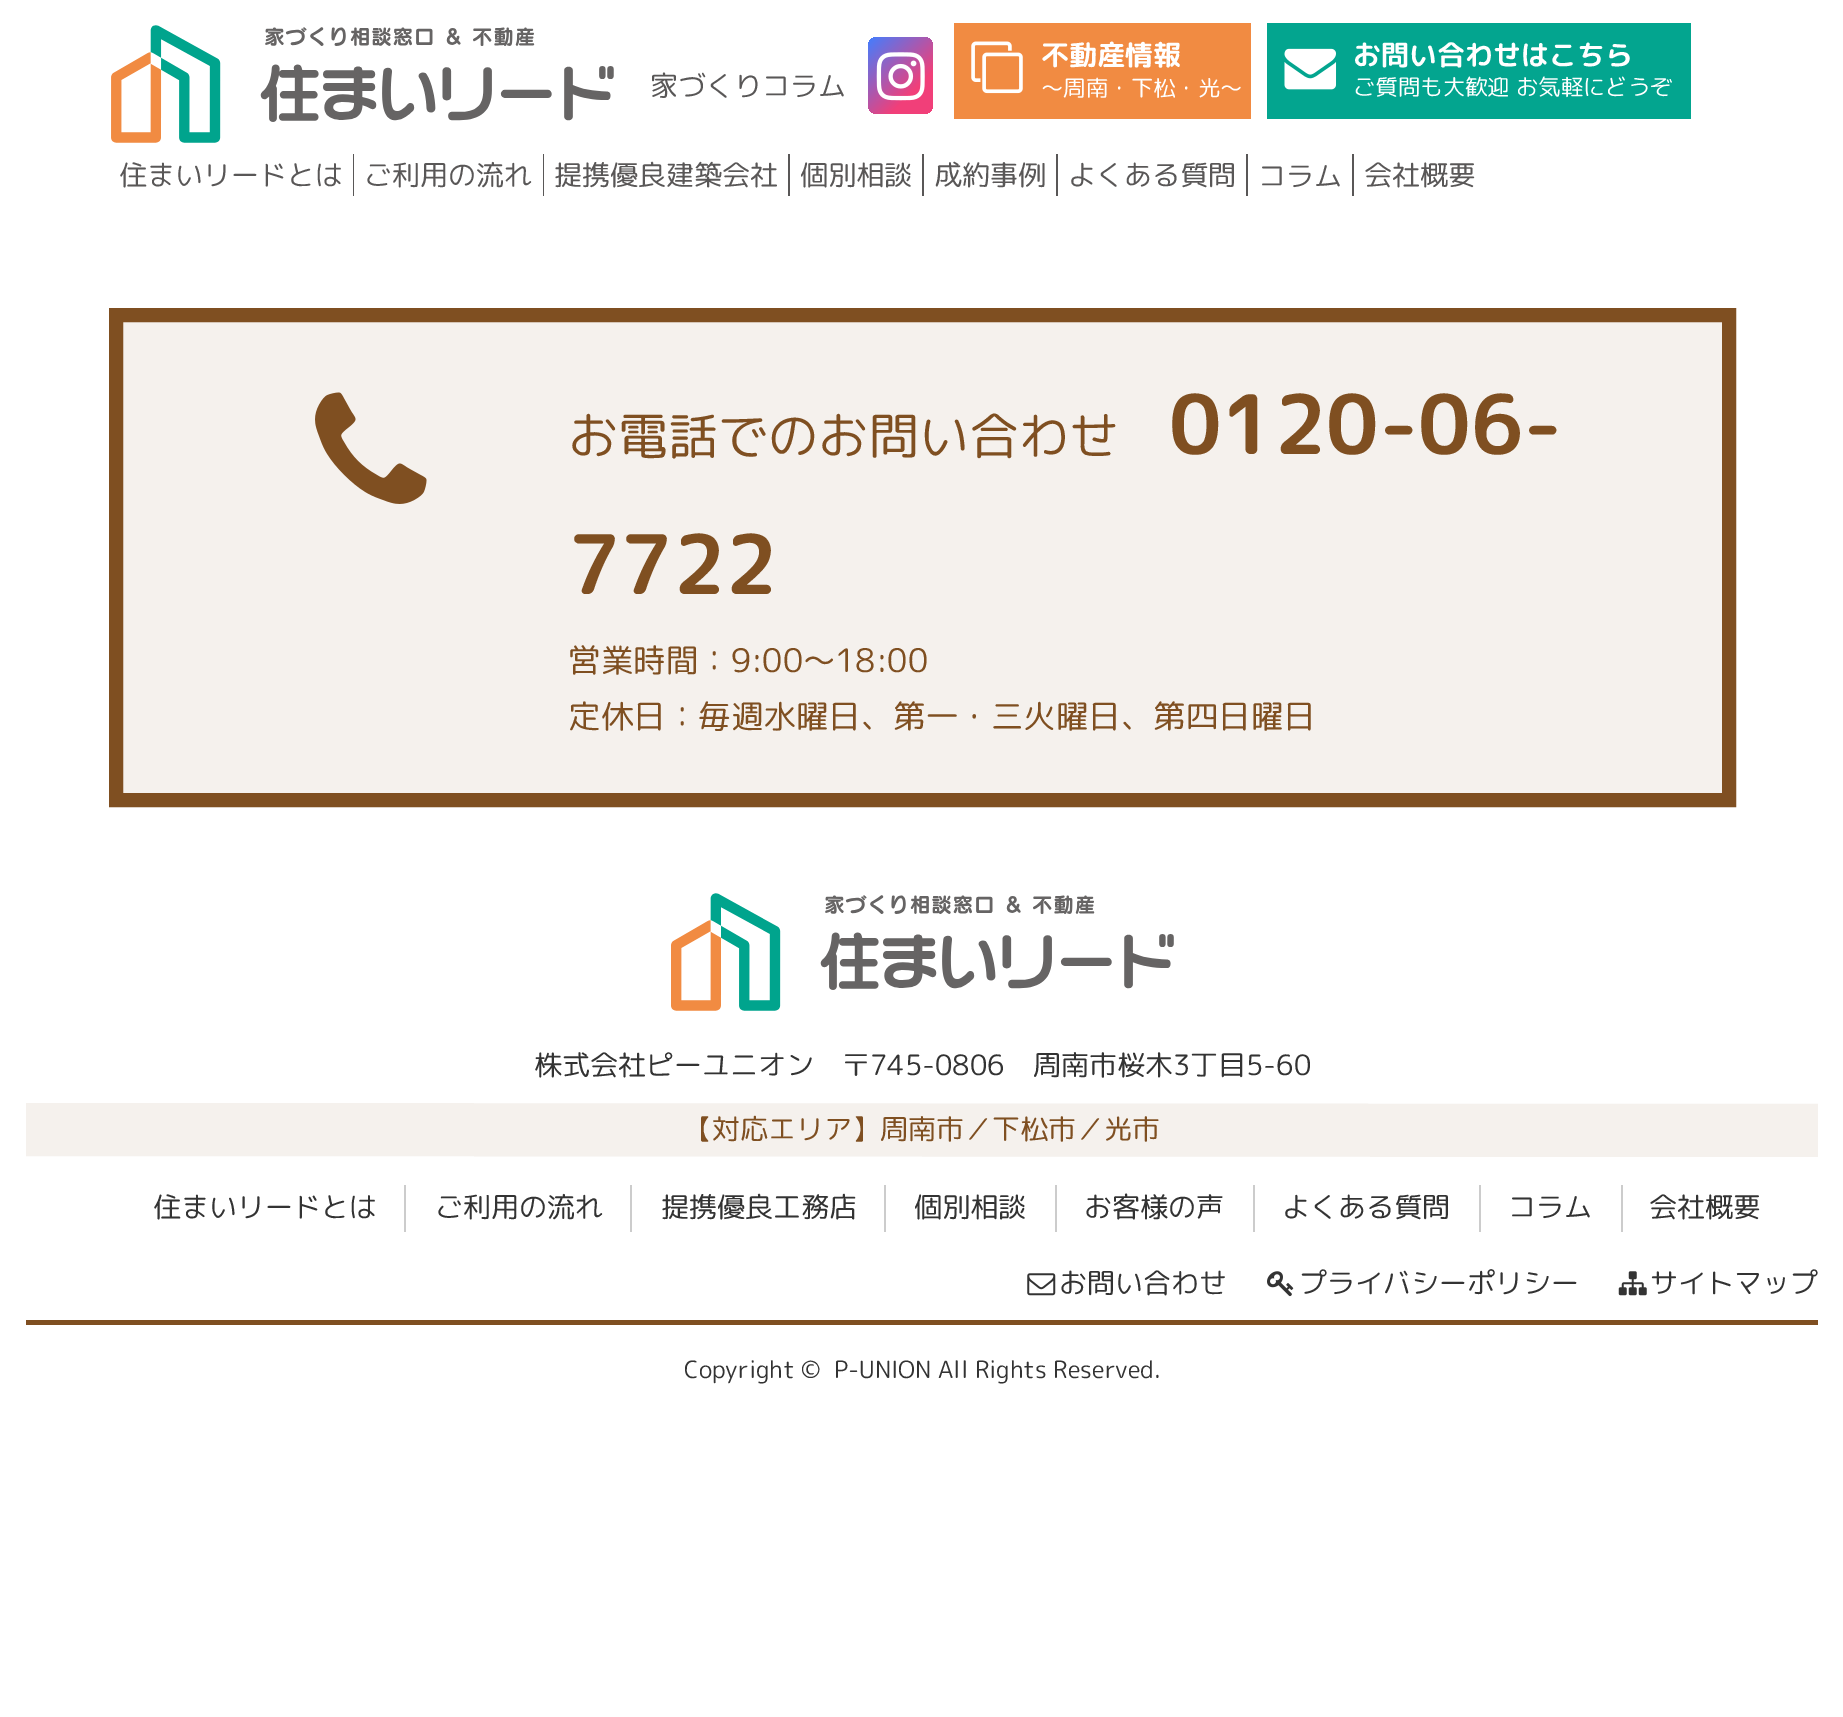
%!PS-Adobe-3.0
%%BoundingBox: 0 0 1843 1717
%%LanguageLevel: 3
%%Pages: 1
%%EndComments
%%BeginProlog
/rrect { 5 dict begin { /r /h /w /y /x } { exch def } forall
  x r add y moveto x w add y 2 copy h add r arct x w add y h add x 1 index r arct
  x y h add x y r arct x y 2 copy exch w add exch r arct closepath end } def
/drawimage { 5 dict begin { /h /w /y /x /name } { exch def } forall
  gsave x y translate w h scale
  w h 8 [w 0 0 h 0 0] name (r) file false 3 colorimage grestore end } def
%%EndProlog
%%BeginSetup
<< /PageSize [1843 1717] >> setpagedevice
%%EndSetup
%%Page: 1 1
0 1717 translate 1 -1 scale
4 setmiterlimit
1 setgray
0 0 1843 1717 rectfill
(images/1.raw) 111 25 503 118 drawimage
gsave 868 37 65 77 9 rrect clip newpath
<< /ShadingType 2 /ColorSpace /DeviceRGB /Coords [865 40 936 111] /Extend [true true] /Function << /FunctionType 3 /Domain [0 1] /Functions [<< /FunctionType 2 /Domain [0 1] /C0 [0.259 0.494 1] /C1 [0.945 0.247 0.475] /N 1 >> << /FunctionType 2 /Domain [0 1] /C0 [0.945 0.247 0.475] /C1 [0.945 0.247 0.475] /N 1 >>] /Bounds [0.7] /Encode [0 1 0 1] >> >> shfill grestore
(images/2.raw) 876 52 49 49 drawimage
0.945 0.545 0.259 setrgbcolor
954 23 297 96 rectfill
(images/3.raw) 971 41 52 53 drawimage
0.012 0.647 0.561 setrgbcolor
1267 23 424 96 rectfill
(images/4.raw) 1284 48 53 42 drawimage
0.349 0.341 0.341 setrgbcolor
353 154 1 42 rectfill
543 154 1 42 rectfill
788 154 2 42 rectfill
922 154 2 42 rectfill
1056 154 2 42 rectfill
1246 154 2 42 rectfill
1352 154 2 42 rectfill
0.961 0.945 0.929 setrgbcolor
newpath 116 315 moveto 1729 315 lineto 1729 800 lineto 116 800 lineto closepath gsave fill grestore
0.498 0.31 0.129 setrgbcolor
14 setlinewidth
stroke
(images/5.raw) 315 392 112 112 drawimage
(images/6.raw) 671 893 503 118 drawimage
0.961 0.945 0.929 setrgbcolor
newpath 26 1103 moveto 1818 1104 lineto 1818 1157 lineto 26 1156 lineto closepath fill
0.8 setgray
404 1185 2 47 rectfill
630 1185 2 47 rectfill
884 1185 2 47 rectfill
1055 1185 2 47 rectfill
1253 1185 2 47 rectfill
1479 1185 2 47 rectfill
1621 1185 2 47 rectfill
(images/7.raw) 1027 1273 29 23 drawimage
(images/8.raw) 1267 1271 27 26 drawimage
(images/9.raw) 1618 1271 29 25 drawimage
0.498 0.31 0.129 setrgbcolor
26 1320 1792 5 rectfill
/RoundedMplus1c-Regular [28 0 0 -28 0 0] selectfont
0.349 0.341 0.341 setrgbcolor
650 96 moveto (家づくりコラム) show
/RoundedMplus1cBold-Bold [28 0 0 -28 0 0] selectfont
1 setgray
1041 65 moveto (不動産情報) show
/RoundedMplus1c-Regular [22.4 0 0 -22.4 0 0] selectfont
1041 96 moveto (～周南・下松・光～) show
/RoundedMplus1cBold-Bold [28 0 0 -28 0 0] selectfont
1353 65 moveto (お問い合わせはこちら) show
/RoundedMplus1c-Regular [22.4 0 0 -22.4 0 0] selectfont
1353 95 moveto (ご質問も大歓迎 お気軽にどうぞ) show
/RoundedMplus1c-Regular [28 0 0 -28 0 0] selectfont
0.349 0.341 0.341 setrgbcolor
119 185 moveto (住まいリードとは) show
364 185 moveto (ご利用の流れ) show
554 185 moveto (提携優良建築会社) show
800 185 moveto (個別相談) show
934 185 moveto (成約事例) show
1068 185 moveto (よくある質問) show
1258 186 moveto (コラム) show
1364 185 moveto (会社概要) show
/RoundedMplus1c-Regular [50.1 0 0 -50.1 0 0] selectfont
0.498 0.31 0.129 setrgbcolor
568 454 moveto (お電話でのお問い合わせ) show
/RoundedMplus1cBold-Bold [82 0 0 -82 0 0] selectfont
1169 454 moveto (0120-06-) show
568 594 moveto (7722) show
/RoundedMplus1c-Regular [32.5 0 0 -32.5 0 0] selectfont
568 672 moveto (営業時間：9:00～18:00) show
568 728 moveto (定休日：毎週水曜日、第一・三火曜日、第四日曜日) show
/RoundedMplus1c-Regular [28 0 0 -28 0 0] selectfont
0.2 setgray
534 1075 moveto (株式会社ピーユニオン　〒745-0806　周南市桜木3丁目5-60) show
0.498 0.31 0.129 setrgbcolor
684 1139 moveto (【対応エリア】周南市／下松市／光市) show
0.2 setgray
153 1217 moveto (住まいリードとは) show
435 1217 moveto (ご利用の流れ) show
661 1217 moveto (提携優良工務店) show
914 1217 moveto (個別相談) show
1084 1217 moveto (お客様の声) show
1282 1217 moveto (よくある質問) show
1508 1217 moveto (コラム) show
1649 1217 moveto (会社概要) show
1059 1293 moveto (お問い合わせ) show
1299 1293 moveto (プライバシーポリシー) show
1650 1293 moveto (サイトマップ) show
/RoundedMplus1c-Regular [23.8 0 0 -23.8 0 0] selectfont
684 1378 moveto (Copyright ©  P-UNION All Rights Reserved.) show
showpage
%%EOF
